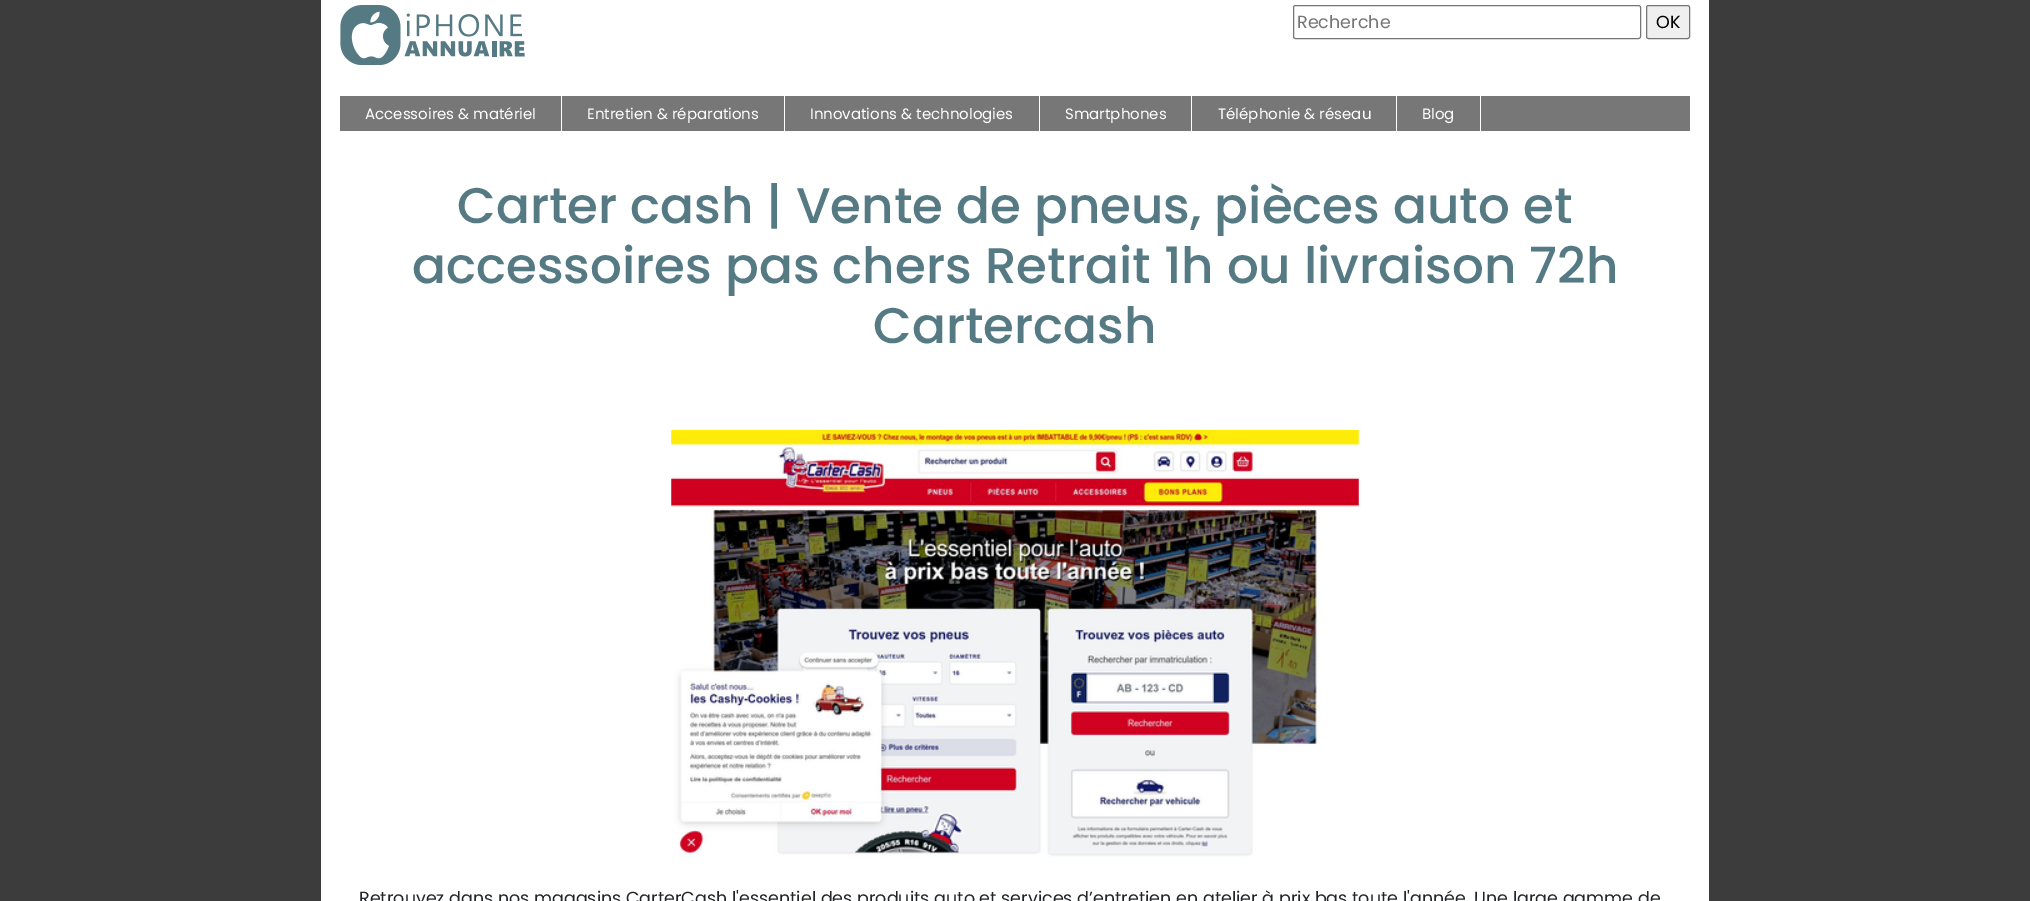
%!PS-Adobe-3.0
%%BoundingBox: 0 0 2030 901
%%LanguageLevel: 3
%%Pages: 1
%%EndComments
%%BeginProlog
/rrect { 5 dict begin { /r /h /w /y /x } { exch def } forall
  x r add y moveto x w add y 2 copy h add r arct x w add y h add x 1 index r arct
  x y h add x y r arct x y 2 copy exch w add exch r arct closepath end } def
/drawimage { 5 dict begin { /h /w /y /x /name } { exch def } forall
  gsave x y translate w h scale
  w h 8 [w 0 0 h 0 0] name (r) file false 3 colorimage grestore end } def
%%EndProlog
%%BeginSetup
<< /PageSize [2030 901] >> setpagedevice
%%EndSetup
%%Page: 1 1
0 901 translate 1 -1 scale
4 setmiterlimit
0.235 setgray
0 0 2030 901 rectfill
1 setgray
321 0 1388 901 rectfill
(images/1.raw) 340 5 185 60 drawimage
0.463 setgray
1293.5 5.5 347 33 2 rrect stroke
0.937 setgray
1646.5 5.5 43 33 2 rrect gsave fill grestore
0.463 setgray
stroke
0.467 setgray
340 96 1350 35 rectfill
1 setgray
561 96 1 35 rectfill
784 96 1 35 rectfill
1039 96 1 35 rectfill
1191 96 1 35 rectfill
1396 96 1 35 rectfill
1480 96 1 35 rectfill
(images/2.raw) 671 430 688 429 drawimage
/Poppins-Regular [17.5 0 0 -17.5 0 0] selectfont
0.459 setgray
1297 28 moveto (Recherche) show
0 setgray
1656 28 moveto (OK) show
/Poppins-Regular [15 0 0 -15 0 0] selectfont
1 setgray
365 119 moveto (Accessoires & matériel) show
587 119 moveto (Entretien & réparations) show
810 119 moveto (Innovations & technologies) show
1065 119 moveto (Smartphones) show
1218 119 moveto (Téléphonie & réseau) show
1422 119 moveto (Blog) show
/Poppins-Medium [50 0 0 -50 0 0] selectfont
0.337 0.478 0.518 setrgbcolor
457 223 moveto (Carter cash | Vente de pneus, pièces auto et) show
412 283 moveto (accessoires pas chers Retrait 1h ou livraison 72h) show
873 343 moveto (Cartercash) show
/Poppins-Regular [17.5 0 0 -17.5 0 0] selectfont
0.129 0.145 0.161 setrgbcolor
359 904 moveto (Retrouvez dans nos magasins CarterCash l'essentiel des produits auto et services d’entretien en atelier à prix bas toute l'année. Une large gamme de) show
showpage
%%EOF
